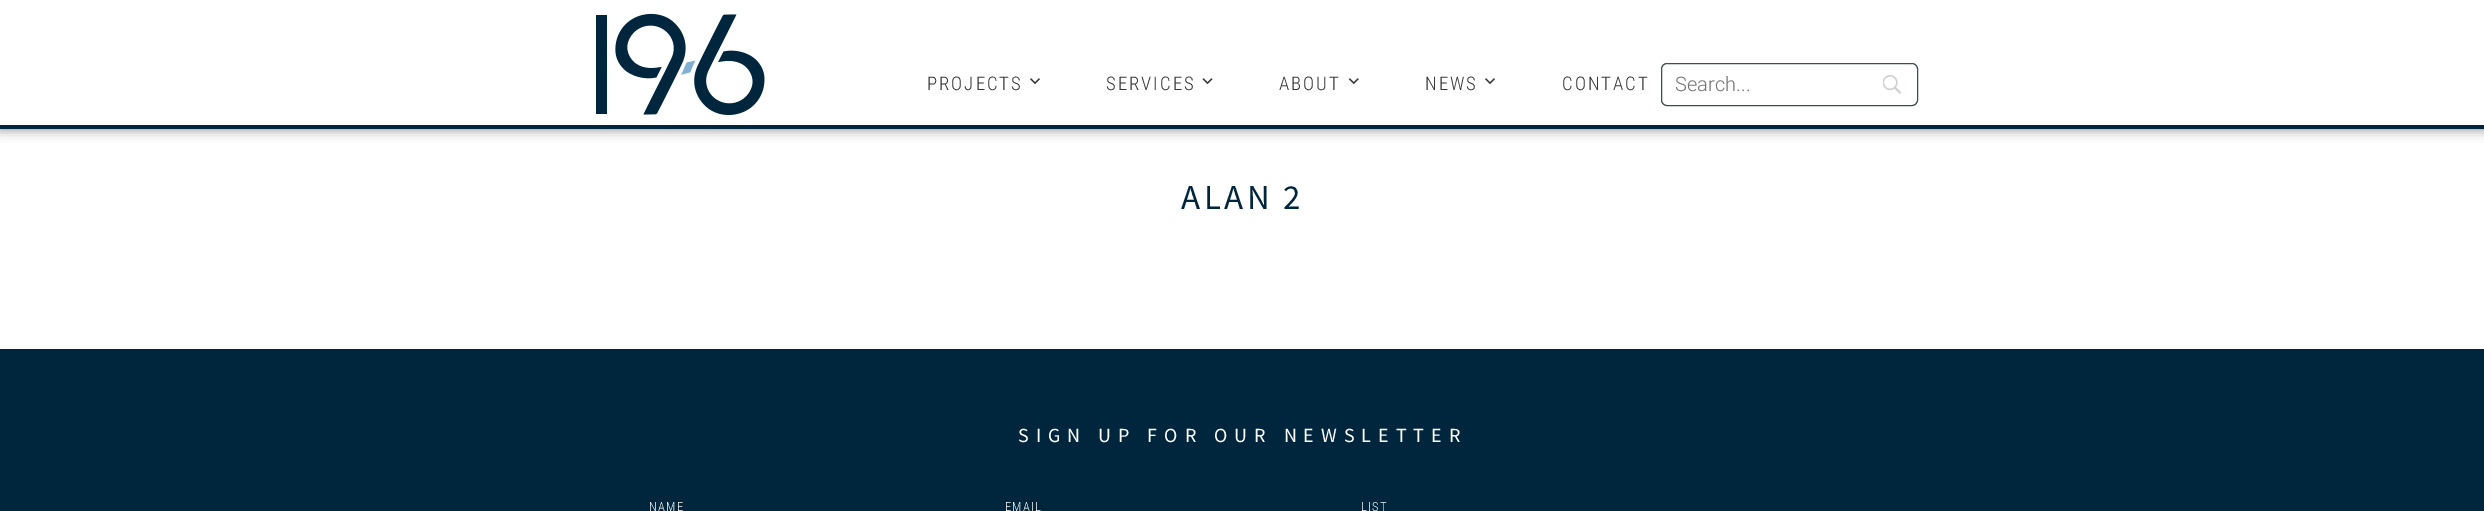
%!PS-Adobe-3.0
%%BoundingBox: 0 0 2484 511
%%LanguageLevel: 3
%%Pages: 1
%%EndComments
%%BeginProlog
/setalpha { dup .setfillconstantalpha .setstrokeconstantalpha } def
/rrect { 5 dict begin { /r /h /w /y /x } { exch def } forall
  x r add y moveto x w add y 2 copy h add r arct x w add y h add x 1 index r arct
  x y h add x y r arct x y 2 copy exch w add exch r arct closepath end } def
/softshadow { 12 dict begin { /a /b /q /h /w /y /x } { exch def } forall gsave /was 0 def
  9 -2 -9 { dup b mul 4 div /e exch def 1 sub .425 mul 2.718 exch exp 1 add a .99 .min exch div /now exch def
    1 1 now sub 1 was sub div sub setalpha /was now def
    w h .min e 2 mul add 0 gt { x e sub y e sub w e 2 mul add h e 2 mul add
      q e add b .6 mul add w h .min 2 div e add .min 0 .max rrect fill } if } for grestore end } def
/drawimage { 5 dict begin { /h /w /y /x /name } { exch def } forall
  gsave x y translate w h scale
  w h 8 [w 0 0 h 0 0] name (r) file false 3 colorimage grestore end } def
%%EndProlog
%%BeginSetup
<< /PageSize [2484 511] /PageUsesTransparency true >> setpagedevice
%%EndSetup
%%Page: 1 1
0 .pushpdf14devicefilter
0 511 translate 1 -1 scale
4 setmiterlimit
1 setgray
0 0 2484 511 rectfill
0 setgray
0 0 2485 129 0 6 0.5 softshadow
1 setgray
0 0 2484 125 rectfill
0 0.149 0.243 setrgbcolor
0 125 2484 4 rectfill
(images/1.raw) 596 13 169 102 drawimage
(images/2.raw) 1029 78 12 7 drawimage
(images/3.raw) 1202 78 11 7 drawimage
(images/4.raw) 1348 78 11 7 drawimage
(images/2.raw) 1484 78 12 7 drawimage
(images/5.raw) 1883 75 18 19 drawimage
0.243 0.302 0.302 setrgbcolor
1661.5 63.5 256 42 5.5 rrect stroke
0 0.149 0.239 setrgbcolor
0 349 2484 162 rectfill
/RobotoCondensed-Light [18.75 0 0 -18.75 0 0] selectfont
0.212 setgray
927 90 moveto 2 0 (PROJECTS) ashow
1106 90 moveto 2 0 (SERVICES) ashow
1279 90 moveto 2 0 (ABOUT) ashow
1425 90 moveto 2 0 (NEWS) ashow
1562 90 moveto 2 0 (CONTACT) ashow
/Roboto-Light [20 0 0 -20 0 0] selectfont
0.459 setgray
1675 91 moveto (Search...) show
/SourceSansPro-Regular [35 0 0 -35 0 0] selectfont
0 0.149 0.239 setrgbcolor
1181 209 moveto 3.5 0 (ALAN 2) ashow
/SourceSansPro-Regular [20 0 0 -20 0 0] selectfont
1 setgray
1018 442 moveto 7 0 (SIGN UP FOR OUR NEWSLETTER) ashow
/RobotoCondensed-Light [12.5 0 0 -12.5 0 0] selectfont
649 511 moveto 1.25 0 (NAME) ashow
1005 511 moveto 1.25 0 (EMAIL) ashow
1361 511 moveto 1.25 0 (LIST) ashow
.poppdf14devicefilter showpage
%%EOF
